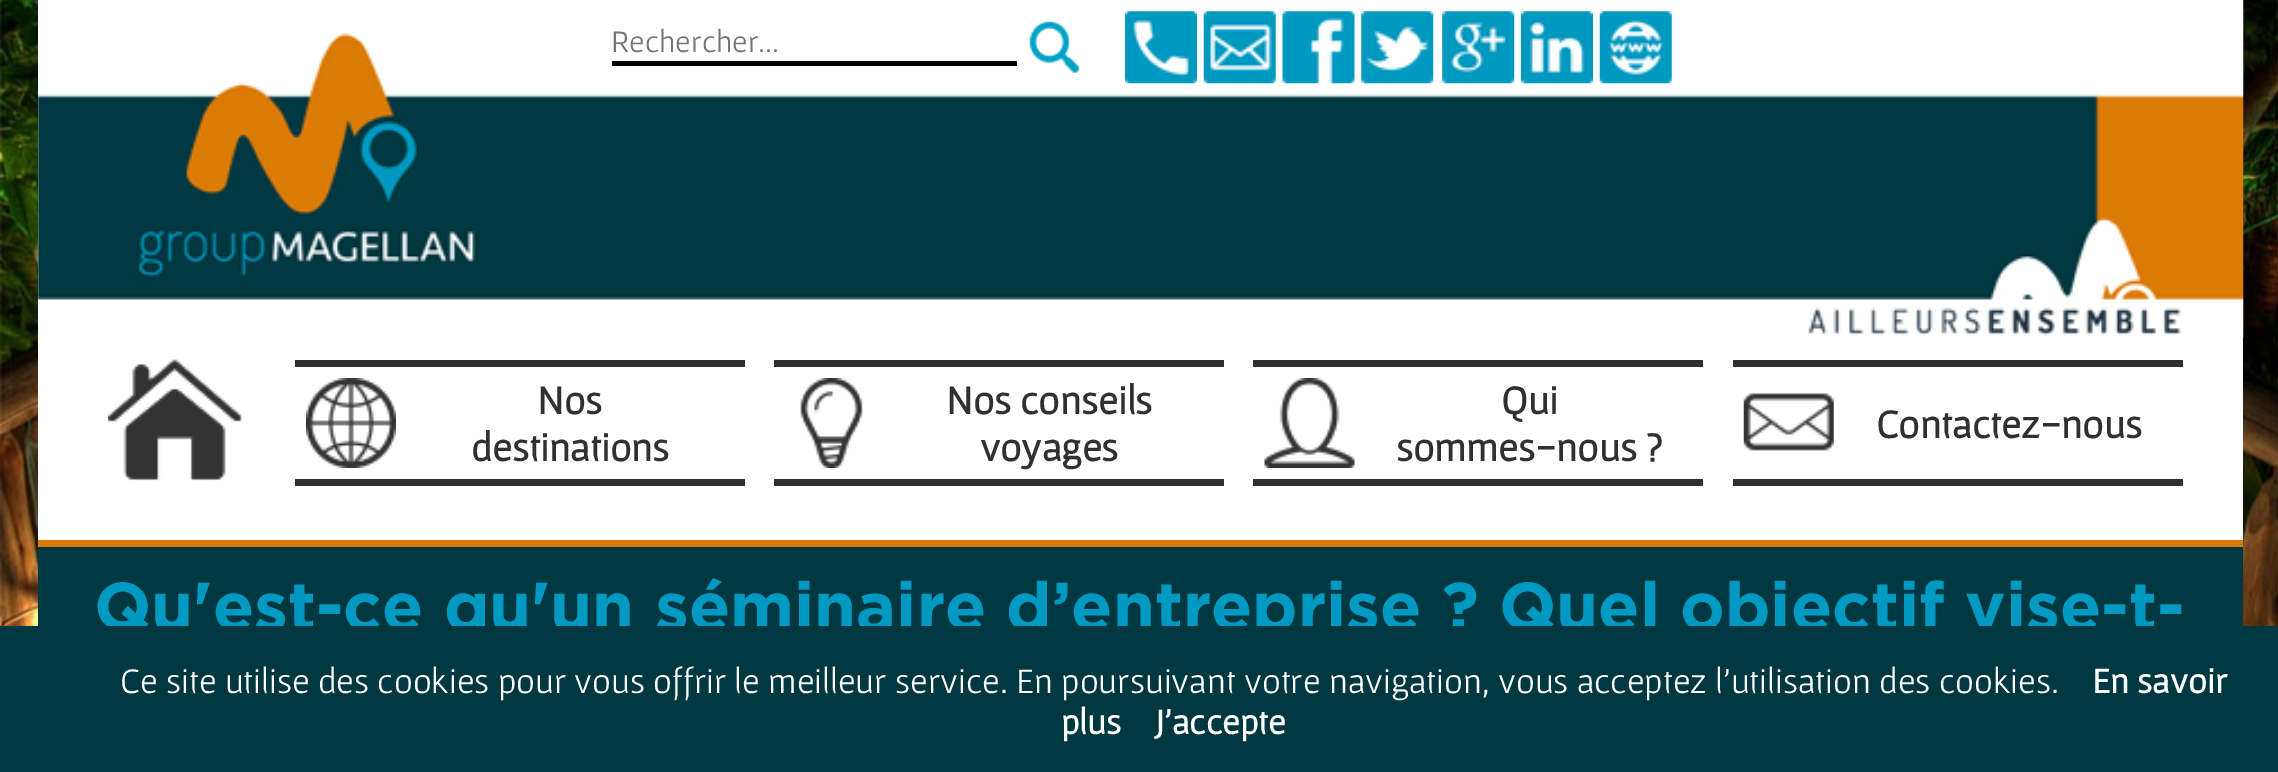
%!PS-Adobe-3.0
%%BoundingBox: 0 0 2278 772
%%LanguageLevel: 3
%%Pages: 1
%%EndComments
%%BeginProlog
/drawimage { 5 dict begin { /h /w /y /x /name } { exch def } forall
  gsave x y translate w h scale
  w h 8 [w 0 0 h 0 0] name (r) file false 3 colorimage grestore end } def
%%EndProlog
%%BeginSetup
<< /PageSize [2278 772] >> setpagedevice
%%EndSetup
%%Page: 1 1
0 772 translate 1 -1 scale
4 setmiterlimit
1 setgray
0 0 2278 772 rectfill
(images/1.raw) 0 0 2278 626 drawimage
38 0 2205 540 rectfill
(images/2.raw) 38 0 2206 338 drawimage
0 setgray
612 61 405 5 rectfill
(images/3.raw) 1029 21 51 52 drawimage
(images/4.raw) 1125 11 72 73 drawimage
(images/5.raw) 1203 11 73 73 drawimage
(images/6.raw) 1282 11 73 73 drawimage
(images/7.raw) 1361 11 73 73 drawimage
(images/8.raw) 1442 11 73 73 drawimage
(images/9.raw) 1521 11 72 73 drawimage
(images/10.raw) 1599 11 73 73 drawimage
(images/11.raw) 108 359 135 122 drawimage
0.188 setgray
295 360 450 7 rectfill
295 479 450 7 rectfill
(images/12.raw) 306 378 90 90 drawimage
774 360 450 7 rectfill
774 479 450 7 rectfill
(images/13.raw) 800 378 63 90 drawimage
1253 360 450 7 rectfill
1253 479 450 7 rectfill
(images/14.raw) 1264 378 91 90 drawimage
1733 360 450 7 rectfill
1733 479 450 7 rectfill
(images/15.raw) 1743 393 91 58 drawimage
0 0.22 0.255 setrgbcolor
38 547 2205 79 rectfill
0.859 0.482 0.027 setrgbcolor
38 540 2205 7 rectfill
/Gafata-Regular [31.5 0 0 -31.5 0 0] selectfont
0.459 setgray
611 52 moveto (Rechercher...) show
/Gafata-Bold [40.5 0 0 -40.5 0 0] selectfont
0.188 setgray
537 414 moveto (Nos) show
471 461 moveto (destinations) show
946 414 moveto (Nos conseils) show
980 461 moveto (voyages) show
1501 414 moveto (Qui) show
1396 461 moveto (sommes-nous ?) show
1876 438 moveto (Contactez-nous) show
/Gotham-Bold [67.5 0 0 -67.5 0 0] selectfont
0 0.6 0.757 setrgbcolor
94 630 moveto (Qu'est-ce qu'un séminaire d’entreprise ? Quel objectif vise-t-) show
0 0.22 0.255 setrgbcolor
0 626 2278 146 rectfill
/Gafata-Regular [36 0 0 -36 0 0] selectfont
1 setgray
120 693 moveto (Ce site utilise des cookies pour vous offrir le meilleur service. En poursuivant votre navigation, vous acceptez l’utilisation des cookies.) show
/Gafata-Bold [36 0 0 -36 0 0] selectfont
2092 693 moveto (En savoir) show
1061 734 moveto (plus) show
1155 734 moveto (J’accepte) show
showpage
%%EOF
